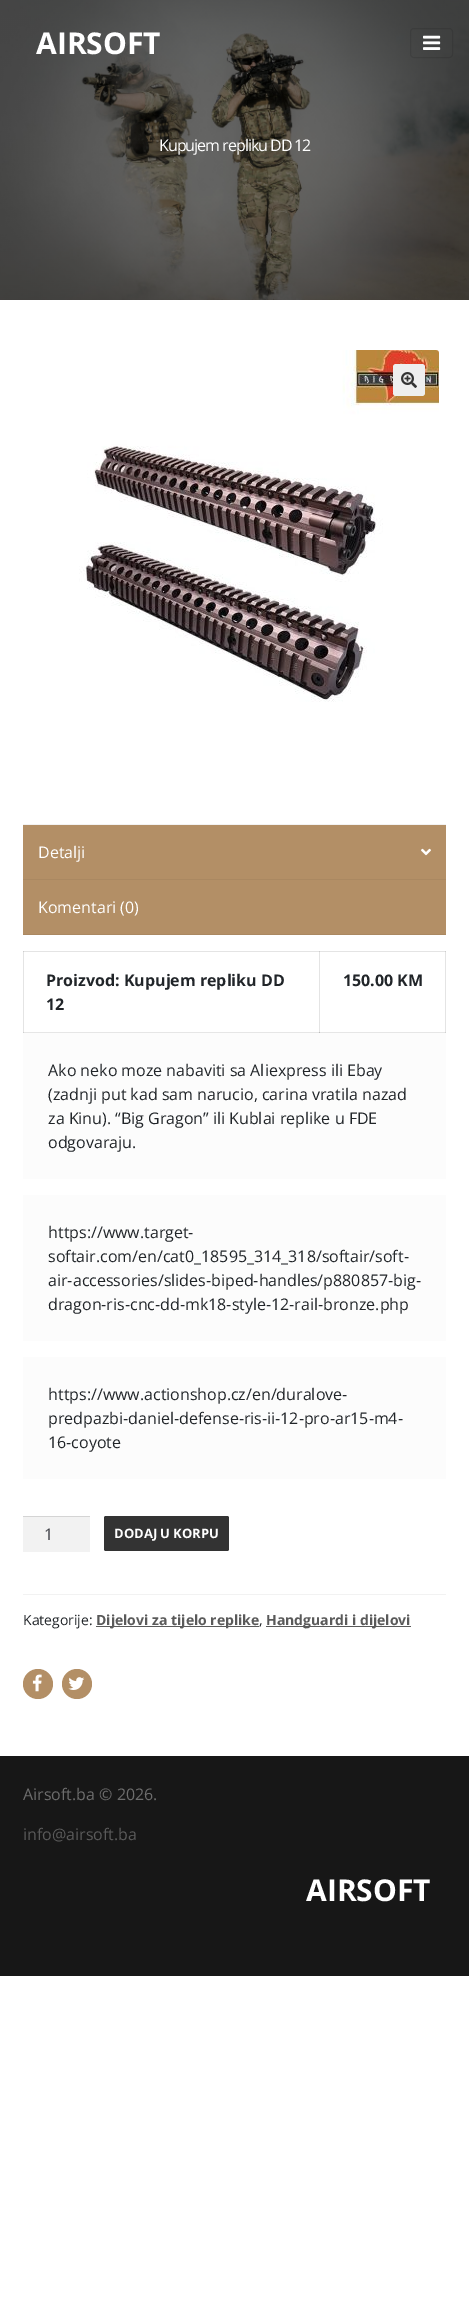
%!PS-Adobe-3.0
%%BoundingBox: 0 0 469 2322
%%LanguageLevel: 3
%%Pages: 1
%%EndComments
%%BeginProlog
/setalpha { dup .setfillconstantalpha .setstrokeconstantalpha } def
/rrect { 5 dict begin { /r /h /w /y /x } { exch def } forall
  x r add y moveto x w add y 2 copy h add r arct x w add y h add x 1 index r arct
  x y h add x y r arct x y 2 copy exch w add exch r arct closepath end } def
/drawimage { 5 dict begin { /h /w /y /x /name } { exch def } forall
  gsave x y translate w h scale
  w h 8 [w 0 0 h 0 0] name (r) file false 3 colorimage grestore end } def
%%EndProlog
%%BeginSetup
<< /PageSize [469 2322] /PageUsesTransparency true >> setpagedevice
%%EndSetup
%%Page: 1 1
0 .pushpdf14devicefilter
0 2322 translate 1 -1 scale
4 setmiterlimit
1 setgray
0 0 469 2322 rectfill
0.902 setgray
23 1032 423 1 rectfill
0.729 setgray
319 1032 1 1 rectfill
0.812 setgray
445 1032 1 1 rectfill
23 1032 1 1 rectfill
(images/2.raw) 0 0 469 300 drawimage
0.1 setalpha
0 setgray
410.5 28.5 42 29 3.5 rrect stroke
1 setalpha
(images/1.raw) 423 35 18 15 drawimage
(images/3.raw) 79 350 360 352 drawimage
0.933 setgray
393 364 32 32 3 rrect fill
(images/4.raw) 401 372 16 16 drawimage
0.949 setgray
23 824 423 1 rectfill
0.702 0.561 0.4 setrgbcolor
23 825 423 54 rectfill
0.667 0.533 0.38 setrgbcolor
23 879 423 1 rectfill
(images/5.raw) 421 848 10 8 drawimage
0.702 0.561 0.4 setrgbcolor
23 880 423 54 rectfill
0.667 0.533 0.38 setrgbcolor
23 934 423 1 rectfill
0.894 setgray
23 951 1 81 rectfill
319 951 1 81 rectfill
445 951 1 81 rectfill
23 951 423 1 rectfill
0.804 setgray
319 951 1 1 rectfill
445 951 1 1 rectfill
23 951 1 1 rectfill
0.988 setgray
23 1033 423 146 rectfill
23 1195 423 146 rectfill
23 1357 423 122 rectfill
0.949 setgray
23 1517 67 35 rectfill
0.831 setgray
23 1516 67 1 rectfill
0.2 setgray
104 1516 125 35 2 rrect fill
0.949 setgray
23 1594 423 1 rectfill
0.353 setgray
96 1626 163 1 rectfill
266 1626 145 1 rectfill
0.702 0.561 0.4 setrgbcolor
newpath 38 1684 15 0 360 arc closepath fill
(images/6.raw) 32 1674 10 18 drawimage
newpath 77 1684 15 0 360 arc closepath fill
(images/7.raw) 68 1677 17 13 drawimage
0.09 setgray
0 1756 469 220 rectfill
/OpenSans-Bold [30 0 0 -30 0 0] selectfont
1 setgray
36 54 moveto (AIRSOFT) show
/OpenSans-Regular [16 0 0 -16 0 0] selectfont
159 151 moveto -1 0 (Kupujem repliku DD 12) ashow
38 858 moveto (Detalji) show
38 913 moveto (Komentari \(0\)) show
/OpenSans-Bold [16 0 0 -16 0 0] selectfont
0.129 0.145 0.161 setrgbcolor
46 986 moveto (Proizvod: Kupujem repliku DD) show
46 1010 moveto (12) show
343 986 moveto (150.00 KM) show
/OpenSans-Regular [16 0 0 -16 0 0] selectfont
48 1076 moveto (Ako neko moze nabaviti sa Aliexpress ili Ebay) show
48 1100 moveto (\(zadnji put kad sam narucio, carina vratila nazad) show
48 1124 moveto (za Kinu\). “Big Gragon” ili Kublai replike u FDE) show
48 1148 moveto (odgovaraju.) show
48 1238 moveto (https://www.target-) show
48 1262 moveto (softair.com/en/cat0_18595_314_318/softair/soft-) show
48 1286 moveto (air-accessories/slides-biped-handles/p880857-big-) show
48 1310 moveto (dragon-ris-cnc-dd-mk18-style-12-rail-bronze.php) show
48 1400 moveto (https://www.actionshop.cz/en/duralove-) show
48 1424 moveto (predpazbi-daniel-defense-ris-ii-12-pro-ar15-m4-) show
48 1448 moveto (16-coyote) show
0.263 0.271 0.294 setrgbcolor
44 1540 moveto (1) show
/OpenSans-Bold [13 0 0 -13 0 0] selectfont
1 setgray
114 1538 moveto (DODAJ U KORPU) show
/OpenSans-Regular [14 0 0 -14 0 0] selectfont
0.129 0.145 0.161 setrgbcolor
23 1625 moveto (Kategorije:) show
/OpenSans-Bold [14 0 0 -14 0 0] selectfont
0.353 setgray
96 1625 moveto (Dijelovi za tijelo replike) show
/OpenSans-Regular [14 0 0 -14 0 0] selectfont
0.129 0.145 0.161 setrgbcolor
259 1625 moveto (,) show
/OpenSans-Bold [14 0 0 -14 0 0] selectfont
0.353 setgray
266 1625 moveto (Handguardi i dijelovi) show
/OpenSans-Regular [16 0 0 -16 0 0] selectfont
0.427 setgray
23 1800 moveto (Airsoft.ba © 2026.) show
0.353 setgray
23 1840 moveto (info@airsoft.ba) show
/OpenSans-Bold [30 0 0 -30 0 0] selectfont
1 setgray
306 1901 moveto (AIRSOFT) show
.poppdf14devicefilter showpage
%%EOF
